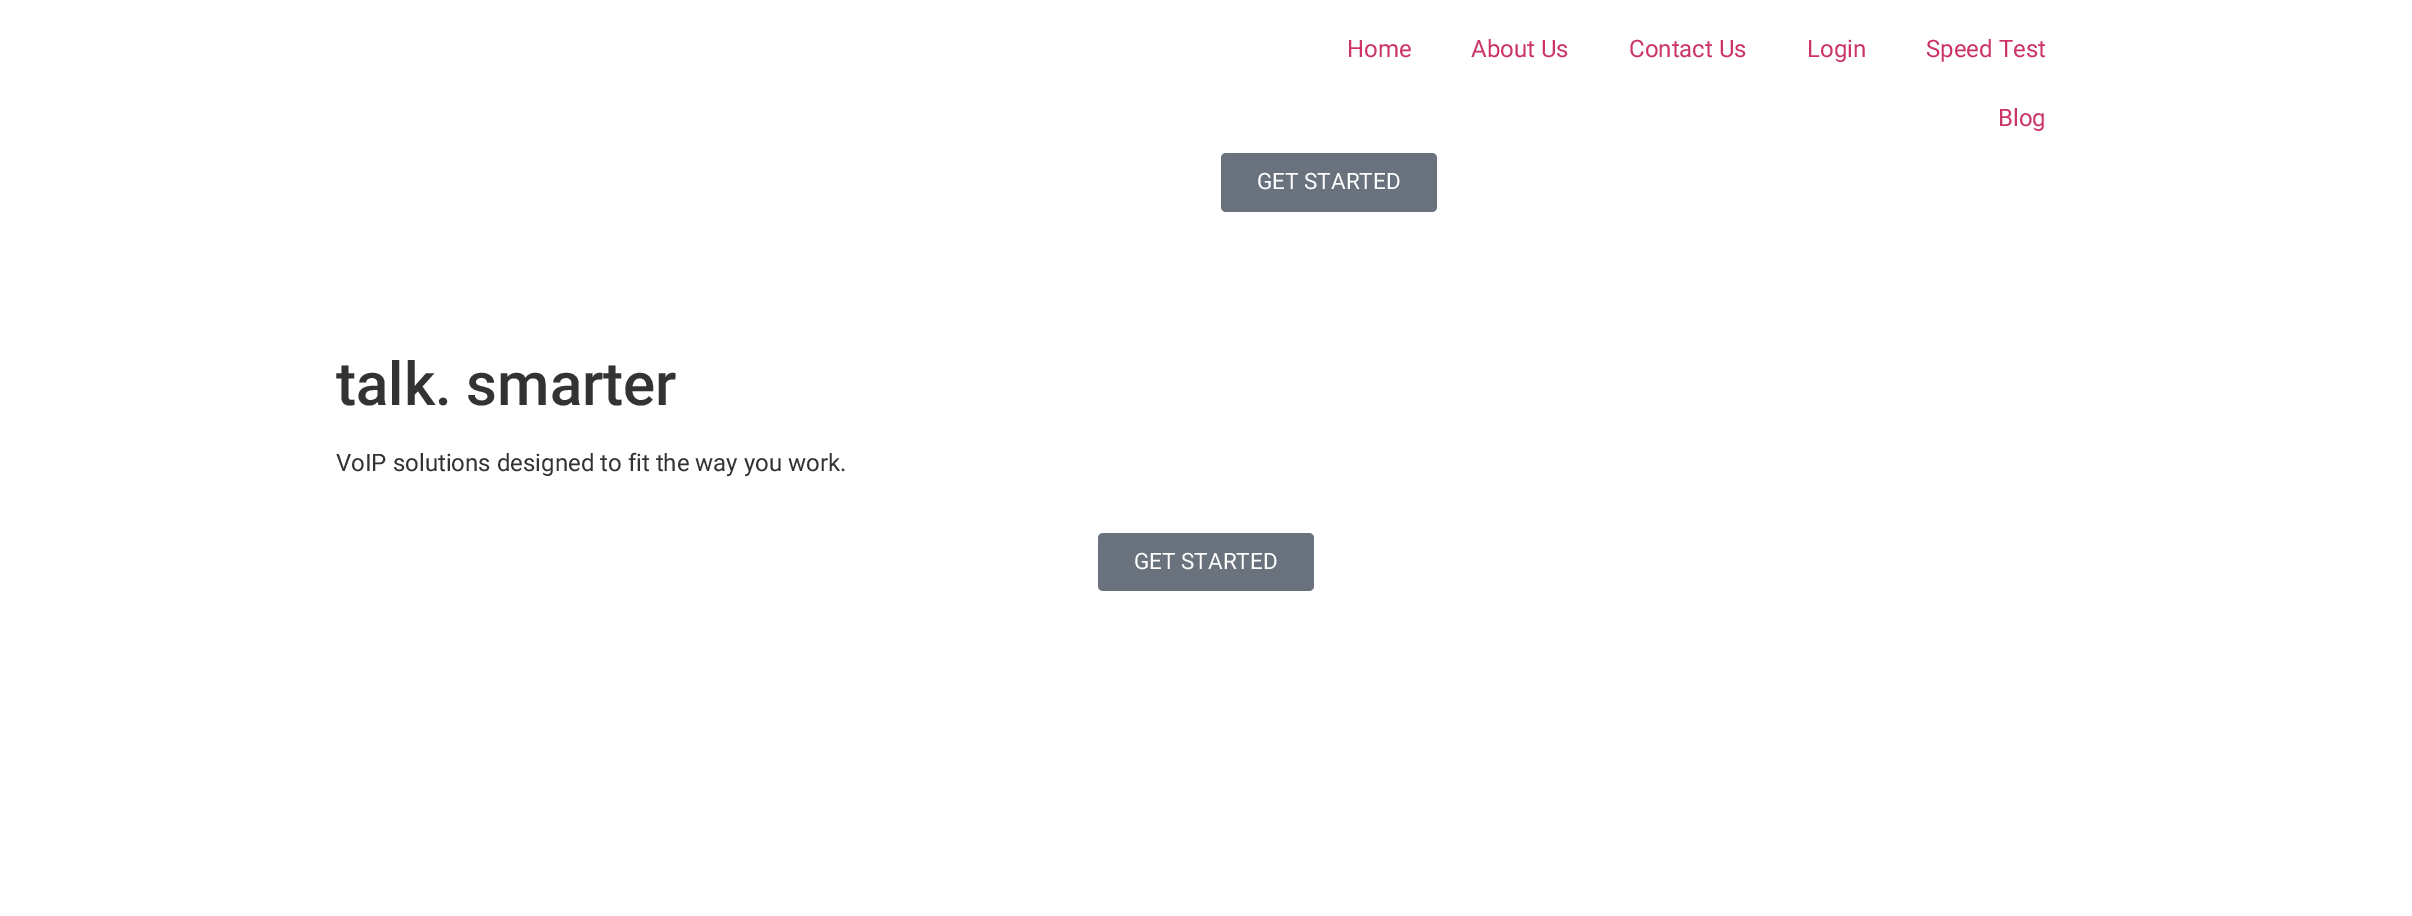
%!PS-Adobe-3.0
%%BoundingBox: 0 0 2412 916
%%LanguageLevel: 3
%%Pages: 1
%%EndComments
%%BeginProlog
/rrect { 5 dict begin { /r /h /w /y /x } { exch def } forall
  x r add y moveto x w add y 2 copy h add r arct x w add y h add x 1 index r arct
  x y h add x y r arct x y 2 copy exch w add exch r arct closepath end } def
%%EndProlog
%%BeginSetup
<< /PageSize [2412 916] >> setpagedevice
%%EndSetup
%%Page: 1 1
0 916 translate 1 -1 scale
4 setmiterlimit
1 setgray
0 0 2412 916 rectfill
0.412 0.447 0.49 setrgbcolor
1221 153 216 59 5 rrect fill
1098 533 216 58 5 rrect fill
/Roboto-Regular [24 0 0 -24 0 0] selectfont
0.8 0.2 0.4 setrgbcolor
1347 57 moveto (Home) show
1471 57 moveto (About Us) show
1629 57 moveto (Contact Us) show
1807 57 moveto (Login) show
1926 57 moveto (Speed Test) show
1998 126 moveto (Blog) show
/Roboto-Regular [22.5 0 0 -22.5 0 0] selectfont
1 setgray
1257 189 moveto (GET STARTED) show
/Roboto-Medium [60 0 0 -60 0 0] selectfont
0.2 setgray
336 405 moveto (talk. smarter) show
/Roboto-Regular [24 0 0 -24 0 0] selectfont
336 471 moveto (VoIP solutions designed to fit the way you work.) show
/Roboto-Regular [22.5 0 0 -22.5 0 0] selectfont
1 setgray
1134 569 moveto (GET STARTED) show
showpage
%%EOF
